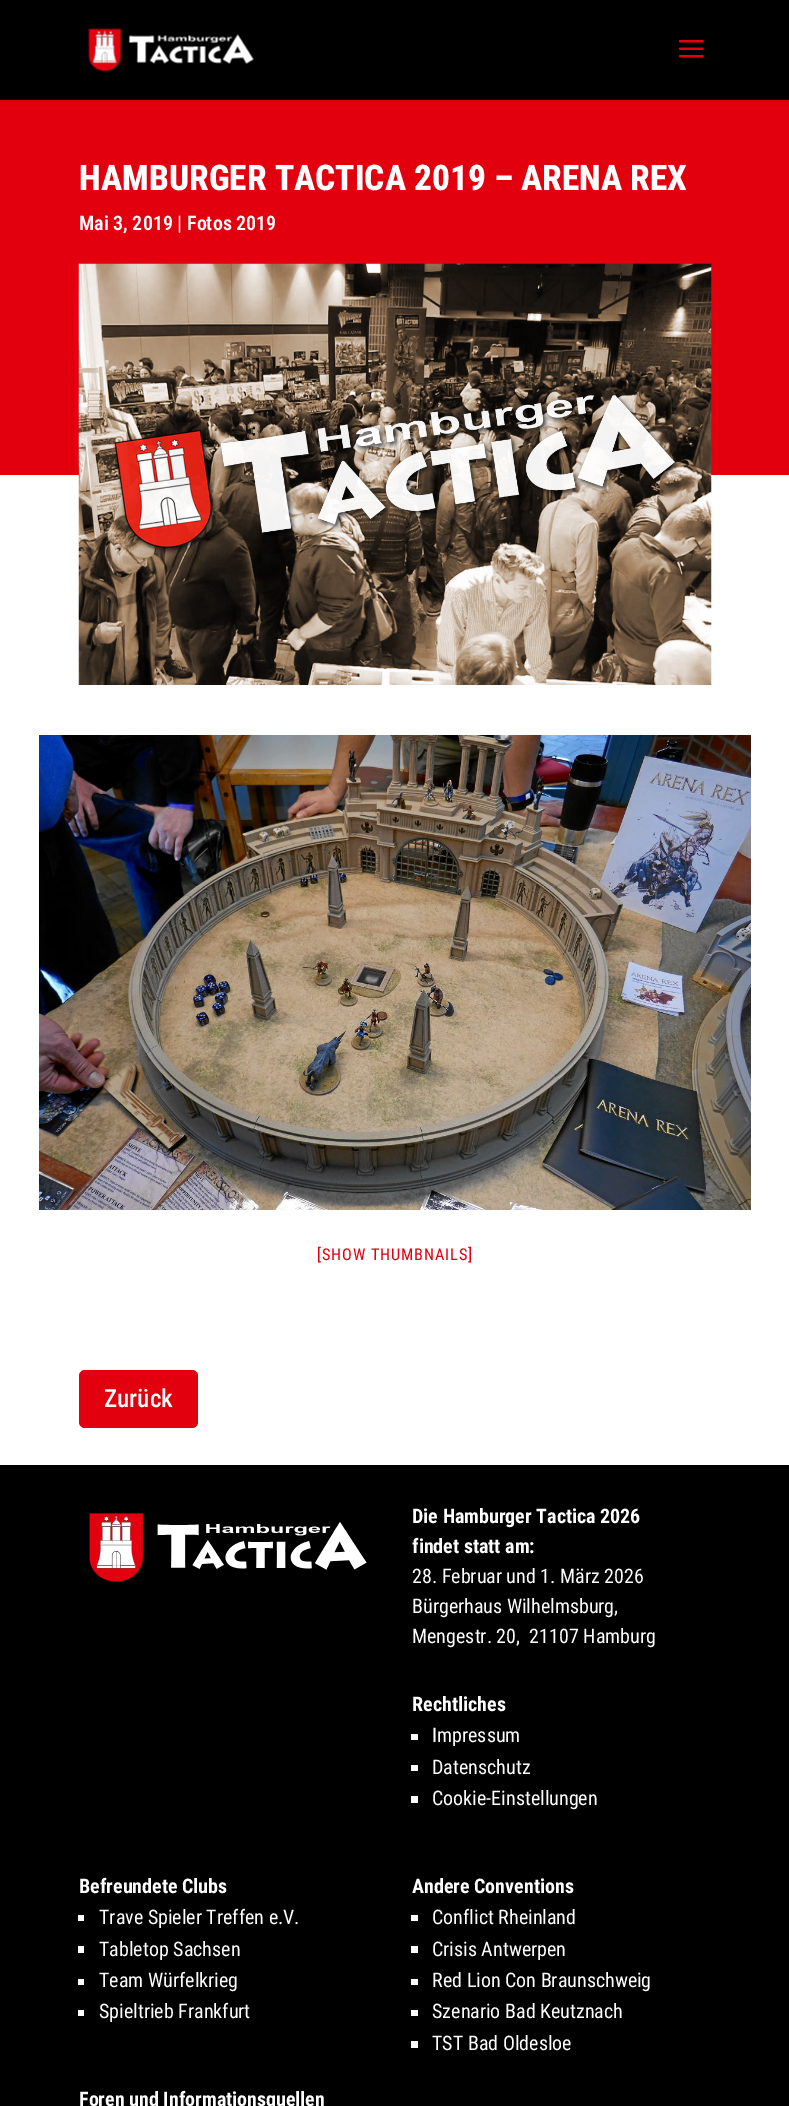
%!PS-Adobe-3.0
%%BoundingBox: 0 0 789 2106
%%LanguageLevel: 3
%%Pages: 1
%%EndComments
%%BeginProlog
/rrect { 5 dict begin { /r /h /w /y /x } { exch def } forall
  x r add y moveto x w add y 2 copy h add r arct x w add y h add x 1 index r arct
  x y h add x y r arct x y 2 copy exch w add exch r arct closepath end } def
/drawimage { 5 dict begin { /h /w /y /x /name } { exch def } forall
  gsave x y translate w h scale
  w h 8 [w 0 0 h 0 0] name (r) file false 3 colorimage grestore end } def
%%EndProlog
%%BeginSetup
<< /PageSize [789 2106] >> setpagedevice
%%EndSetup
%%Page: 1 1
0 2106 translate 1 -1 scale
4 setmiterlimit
1 setgray
0 0 789 2106 rectfill
0.8 0 0.051 setrgbcolor
0 100 789 1 rectfill
0 setgray
0 0 789 100 rectfill
(images/1.raw) 88 28 166 44 drawimage
(images/2.raw) 678 40 26 18 drawimage
0.89 0 0.055 setrgbcolor
0 101 789 374 rectfill
(images/3.raw) 78 263 634 422 drawimage
(images/4.raw) 39 735 712 475 drawimage
79 1370 119 58 6 rrect fill
0 setgray
0 1465 789 641 rectfill
(images/5.raw) 89 1513 278 69 drawimage
1 setgray
411 1734 7 6 rectfill
411 1765 7 6 rectfill
411 1796 7 7 rectfill
78 1915 6 6 rectfill
78 1946 6 7 rectfill
78 1979 6 6 rectfill
78 2010 6 6 rectfill
411 1915 7 6 rectfill
411 1946 7 7 rectfill
411 1979 7 6 rectfill
411 2010 7 6 rectfill
411 2041 7 7 rectfill
/RobotoCondensed-ExtraBold [35.3 0 0 -35.3 0 0] selectfont
79 190 moveto (HAMBURGER TACTICA 2019 – ARENA REX) show
/RobotoCondensed-SemiBold [20 0 0 -20 0 0] selectfont
79 230 moveto (Mai 3, 2019 | Fotos 2019) show
/RobotoCondensed-Regular [16.25 0 0 -16.25 0 0] selectfont
0.89 0 0.055 setrgbcolor
317 1260 moveto 0.9 0 ([SHOW THUMBNAILS]) ashow
/RobotoCondensed-Medium [25 0 0 -25 0 0] selectfont
1 setgray
104 1407 moveto (Zurück) show
/RobotoCondensed-Bold [20 0 0 -20 0 0] selectfont
412 1523 moveto (Die Hamburger Tactica 2026) show
412 1553 moveto (findet statt am:) show
/RobotoCondensed-Regular [20 0 0 -20 0 0] selectfont
412 1583 moveto (28. Februar und 1. März 2026) show
412 1613 moveto (Bürgerhaus Wilhelmsburg,) show
412 1643 moveto (Mengestr. 20,  21107 Hamburg) show
/RobotoCondensed-Bold [20 0 0 -20 0 0] selectfont
412 1711 moveto (Rechtliches) show
/RobotoCondensed-Regular [20 0 0 -20 0 0] selectfont
432 1742 moveto (Impressum) show
432 1774 moveto (Datenschutz) show
432 1805 moveto (Cookie-Einstellungen) show
/RobotoCondensed-Bold [20 0 0 -20 0 0] selectfont
79 1893 moveto (Befreundete Clubs) show
/RobotoCondensed-Regular [20 0 0 -20 0 0] selectfont
99 1924 moveto (Trave Spieler Treffen e.V.) show
99 1956 moveto (Tabletop Sachsen) show
99 1987 moveto (Team Würfelkrieg) show
99 2018 moveto (Spieltrieb Frankfurt) show
/RobotoCondensed-Bold [20 0 0 -20 0 0] selectfont
79 2106 moveto (Foren und Informationsquellen) show
412 1893 moveto (Andere Conventions) show
/RobotoCondensed-Regular [20 0 0 -20 0 0] selectfont
432 1924 moveto (Conflict Rheinland) show
432 1956 moveto (Crisis Antwerpen) show
432 1987 moveto (Red Lion Con Braunschweig) show
432 2018 moveto (Szenario Bad Keutznach) show
432 2050 moveto (TST Bad Oldesloe) show
showpage
%%EOF
